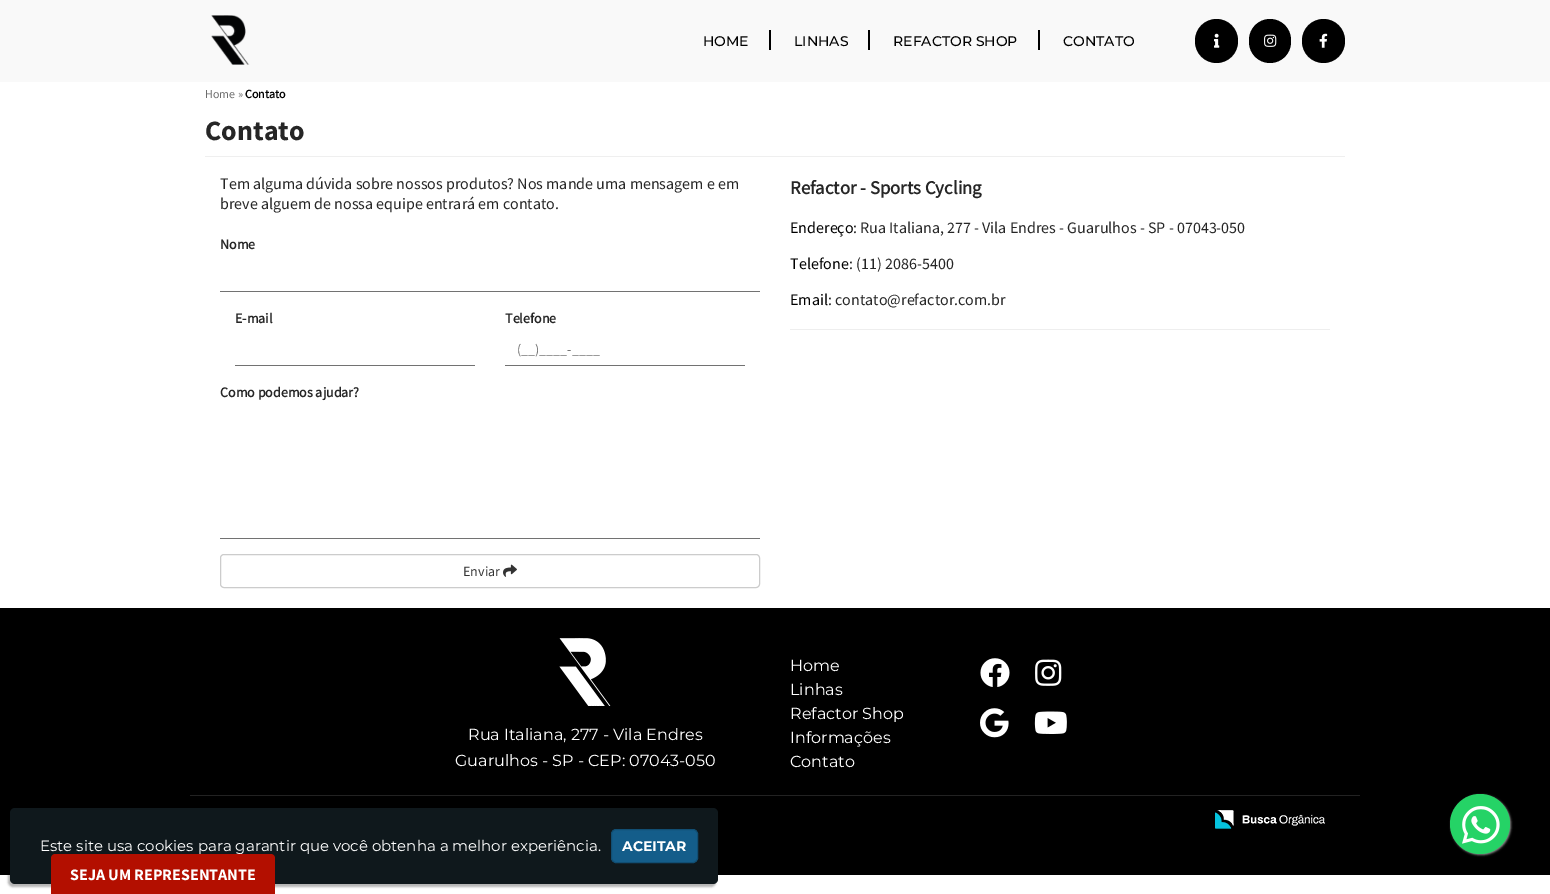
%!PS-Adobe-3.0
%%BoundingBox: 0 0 1550 894
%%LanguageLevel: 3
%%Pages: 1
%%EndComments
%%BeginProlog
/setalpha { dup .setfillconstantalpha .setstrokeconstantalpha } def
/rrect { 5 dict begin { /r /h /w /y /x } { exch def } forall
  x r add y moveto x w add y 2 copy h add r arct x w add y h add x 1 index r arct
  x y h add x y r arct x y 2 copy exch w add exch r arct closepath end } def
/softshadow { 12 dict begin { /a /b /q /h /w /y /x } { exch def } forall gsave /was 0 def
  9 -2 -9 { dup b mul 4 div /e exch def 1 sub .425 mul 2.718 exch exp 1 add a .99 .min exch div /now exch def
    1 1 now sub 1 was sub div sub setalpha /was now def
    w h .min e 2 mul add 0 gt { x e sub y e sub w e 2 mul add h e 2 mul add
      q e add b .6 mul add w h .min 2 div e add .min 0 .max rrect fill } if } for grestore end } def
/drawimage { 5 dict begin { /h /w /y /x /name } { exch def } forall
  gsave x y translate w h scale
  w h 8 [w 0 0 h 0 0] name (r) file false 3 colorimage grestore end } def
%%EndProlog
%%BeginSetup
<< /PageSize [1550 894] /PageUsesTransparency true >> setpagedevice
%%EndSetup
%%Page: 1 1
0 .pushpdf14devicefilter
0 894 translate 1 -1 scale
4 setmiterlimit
1 setgray
0 0 1550 894 rectfill
0.976 setgray
0 0 1550 82 rectfill
(images/1.raw) 211 15 39 50 drawimage
0 setgray
769 30 2 20 rectfill
868 30 2 20 rectfill
1038 30 2 20 rectfill
1195 19 43 44 21.5 rrect fill
(images/2.raw) 1214 33 6 15 drawimage
1249 19 42 44 21 rrect fill
(images/3.raw) 1264 34 13 13 drawimage
1302 19 43 44 21.5 rrect fill
(images/4.raw) 1319 33 9 15 drawimage
0.937 setgray
205 156 1140 1 rectfill
0.447 setgray
220 291 540 1 rectfill
235 365 240 1 rectfill
505 365 240 1 rectfill
220 538 540 1 rectfill
0.8 setgray
220.5 554.5 539 33 3.5 rrect stroke
(images/5.raw) 503 564 14 13 drawimage
0.933 setgray
790 329 540 1 rectfill
0 setgray
0 608 1550 267 rectfill
(images/6.raw) 559 638 52 68 drawimage
(images/7.raw) 980 658 30 29 drawimage
(images/8.raw) 1035 659 27 27 drawimage
(images/9.raw) 980 708 29 30 drawimage
(images/10.raw) 1034 711 33 23 drawimage
0.133 setgray
190 795 1170 1 rectfill
(images/11.raw) 1215 810 110 19 drawimage
0.533 setgray
1451 795 60 60 30 1 1 softshadow
0.145 0.827 0.4 setrgbcolor
newpath 1480 824 30 0 360 arc closepath fill
(images/12.raw) 1462 806 38 38 drawimage
0 setgray
8 811 708 76 5 1 0.3 softshadow
0.059 0.094 0.11 setrgbcolor
10 808 708 76 5 rrect fill
0.078 0.365 0.541 setrgbcolor
611.5 829.5 86 33 4.5 rrect gsave fill grestore
0.067 0.306 0.451 setrgbcolor
stroke
0.702 0.059 0 setrgbcolor
newpath 55 854 moveto 271 854 lineto 273 854 275 856 275 858 curveto 275 894 lineto 51 894 lineto 51 858 lineto 51 856 53 854 55 854 curveto closepath fill
/Montserrat-Medium [14 0 0 -14 0 0] selectfont
0 setgray
703 46 moveto (HOME) show
794 46 moveto (LINHAS) show
893 46 moveto (REFACTOR SHOP) show
1063 46 moveto (CONTATO) show
/SourceSansPro-Regular [12 0 0 -12 0 0] selectfont
0.427 setgray
205 98 moveto (Home ») show
/SourceSansPro-Bold [12 0 0 -12 0 0] selectfont
0 setgray
245 98 moveto (Contato) show
/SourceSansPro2-Bold [28 0 0 -28 0 0] selectfont
0.149 setgray
205 140 moveto (Contato) show
/SourceSansPro-Regular [16 0 0 -16 0 0] selectfont
220 189 moveto (Tem alguma dúvida sobre nossos produtos? Nos mande uma mensagem e em) show
220 209 moveto (breve alguem de nossa equipe entrará em contato.) show
/SourceSansPro-Bold [14 0 0 -14 0 0] selectfont
220 249 moveto (Nome) show
235 323 moveto (E-mail) show
505 323 moveto (Telefone) show
/SourceSansPro-Regular [14 0 0 -14 0 0] selectfont
0.459 setgray
517 354 moveto (\(__\)____-____) show
/SourceSansPro-Bold [14 0 0 -14 0 0] selectfont
0.149 setgray
220 397 moveto (Como podemos ajudar?) show
/SourceSansPro-Regular [14 0 0 -14 0 0] selectfont
0.2 setgray
463 576 moveto (Enviar) show
/SourceSansPro-Bold [18.75 0 0 -18.75 0 0] selectfont
0.149 setgray
790 194 moveto (Refactor - Sports Cycling) show
/SourceSansPro-Regular [16 0 0 -16 0 0] selectfont
0 setgray
790 233 moveto (Endereço) show
0.149 setgray
853 233 moveto (: Rua Italiana, 277 - Vila Endres - Guarulhos - SP - 07043-050) show
0 setgray
790 269 moveto (Telefone) show
0.149 setgray
849 269 moveto (: \(11\) 2086-5400) show
0 setgray
790 305 moveto (Email) show
0.149 setgray
828 305 moveto (: contato@refactor.com.br) show
/Montserrat-Regular [16 0 0 -16 0 0] selectfont
1 setgray
468 740 moveto (Rua Italiana, 277 - Vila Endres) show
455 766 moveto (Guarulhos - SP - CEP: 07043-050) show
790 671 moveto (Home) show
790 695 moveto (Linhas) show
790 719 moveto (Refactor Shop) show
790 743 moveto (Informações) show
790 767 moveto (Contato) show
/Montserrat-Regular [15 0 0 -15 0 0] selectfont
40 851 moveto (Este site usa cookies para garantir que você obtenha a melhor experiência.) show
/Montserrat-Bold [14 0 0 -14 0 0] selectfont
622 851 moveto (ACEITAR) show
/SourceSansPro2-Bold [16 0 0 -16 0 0] selectfont
70 880 moveto (SEJA UM REPRESENTANTE) show
.poppdf14devicefilter showpage
%%EOF
